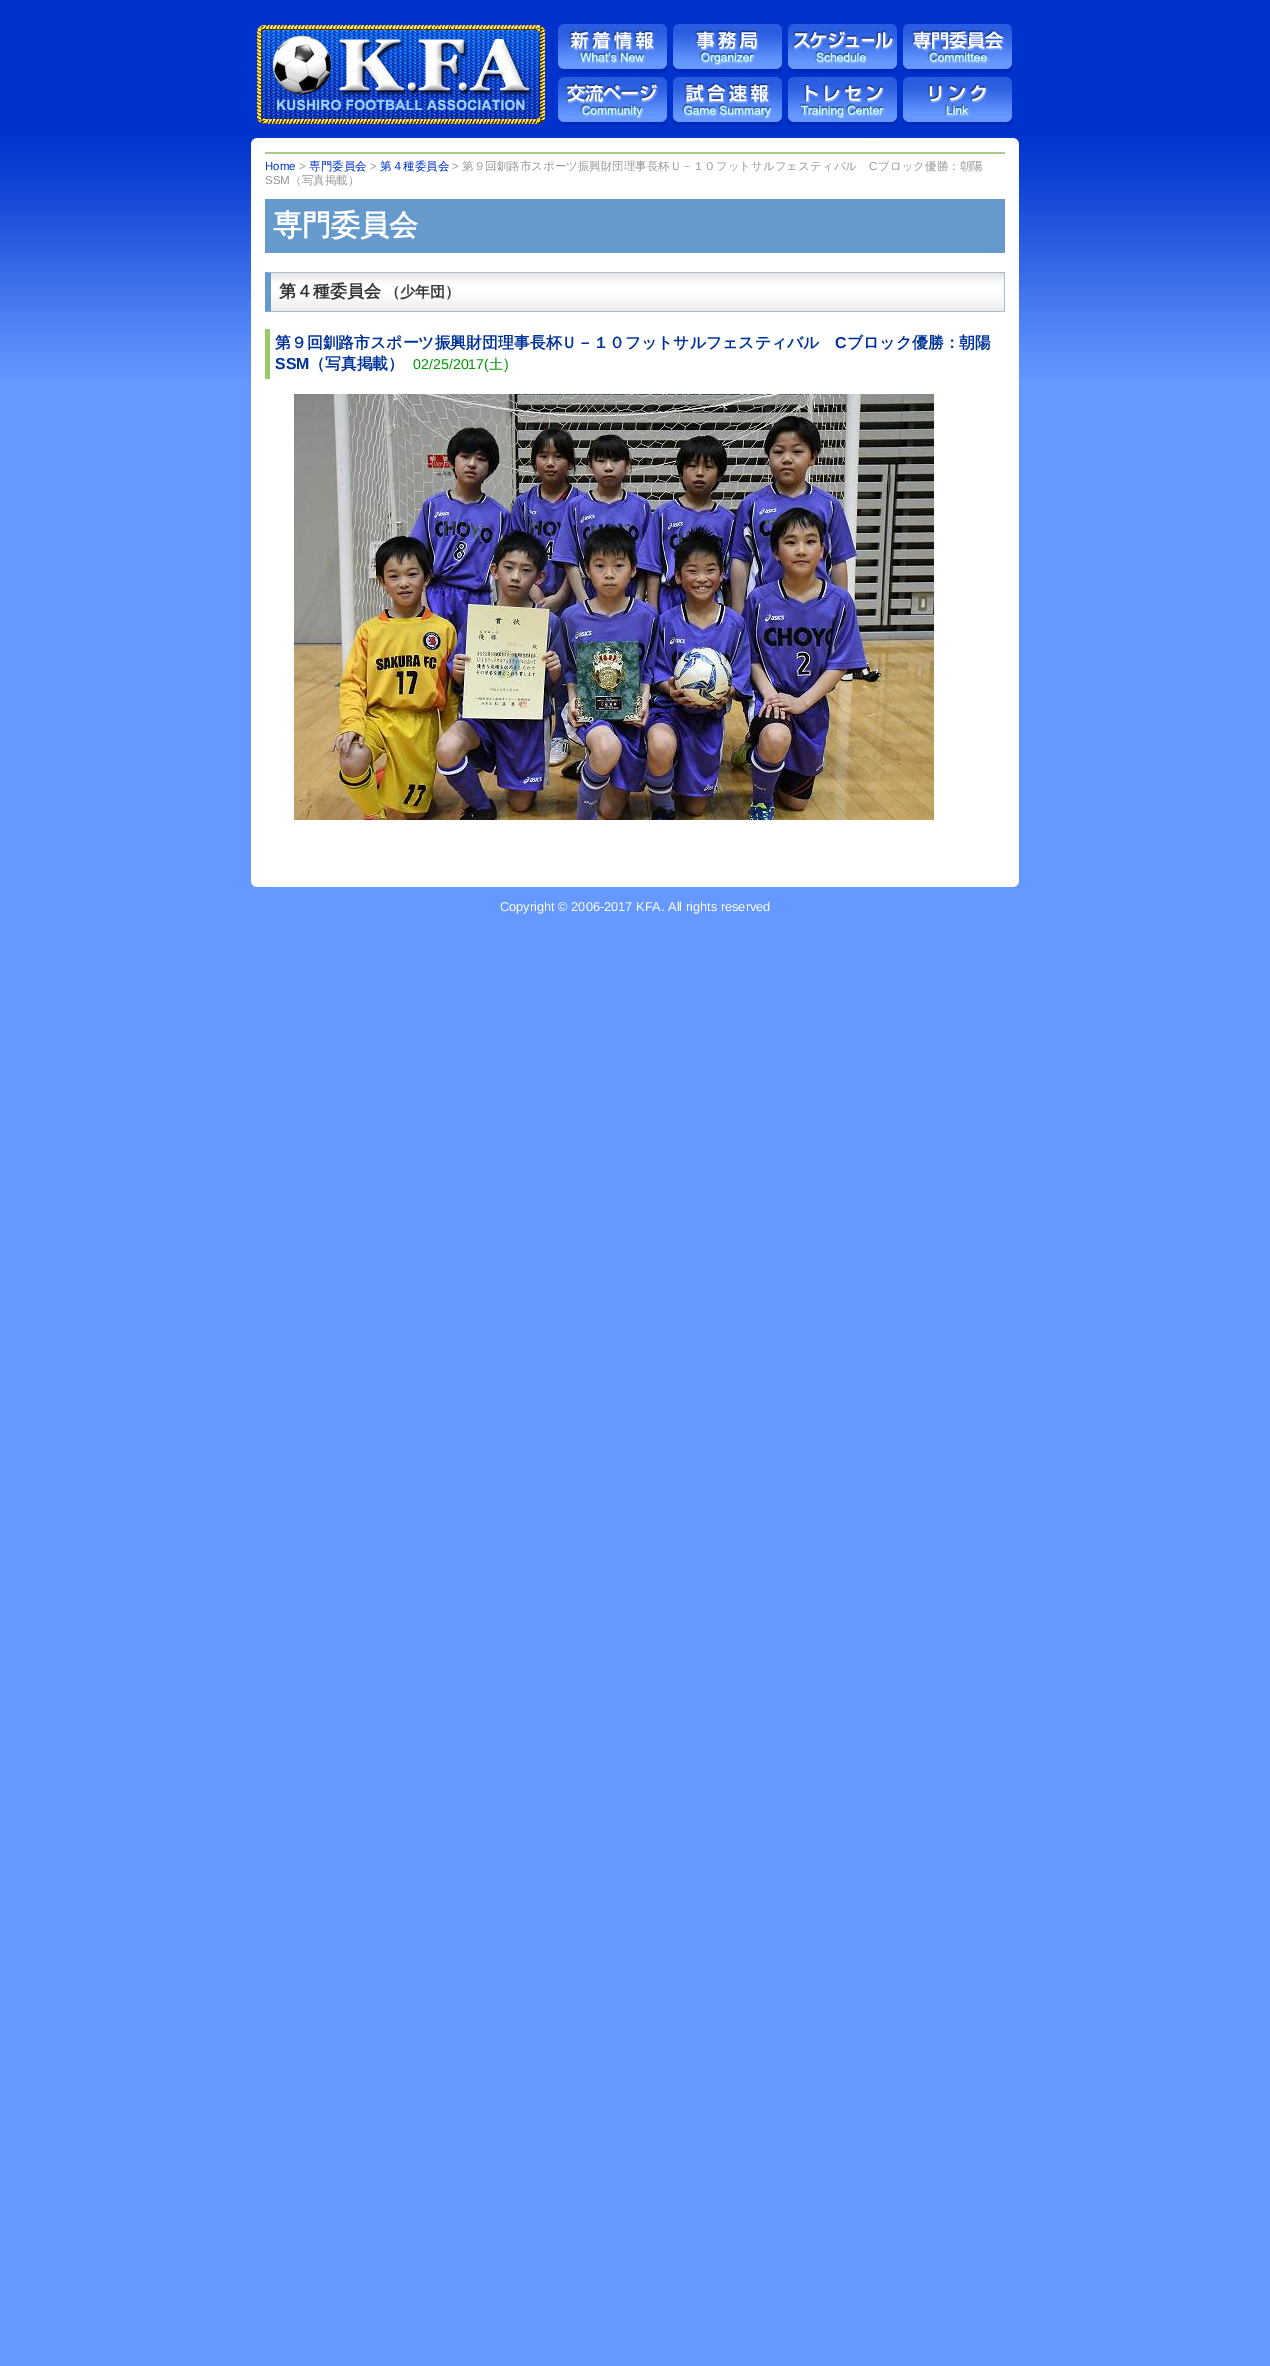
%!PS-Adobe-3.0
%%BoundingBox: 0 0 1270 2366
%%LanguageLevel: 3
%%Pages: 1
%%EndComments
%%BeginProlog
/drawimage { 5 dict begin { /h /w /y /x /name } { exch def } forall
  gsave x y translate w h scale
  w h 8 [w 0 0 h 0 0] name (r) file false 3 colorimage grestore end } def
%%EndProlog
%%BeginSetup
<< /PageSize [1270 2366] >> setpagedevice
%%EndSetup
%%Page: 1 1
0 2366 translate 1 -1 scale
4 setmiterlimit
0.4 0.6 1 setrgbcolor
0 0 1270 2366 rectfill
(images/1.raw) 0 0 1270 378 drawimage
(images/2.raw) 251 24 296 100 drawimage
(images/3.raw) 558 24 109 50 drawimage
(images/4.raw) 673 24 109 50 drawimage
(images/5.raw) 788 24 109 50 drawimage
(images/6.raw) 903 24 109 50 drawimage
(images/7.raw) 558 77 109 50 drawimage
(images/8.raw) 673 77 109 50 drawimage
(images/9.raw) 788 77 109 50 drawimage
(images/10.raw) 903 77 109 50 drawimage
1 setgray
251 162 768 701 rectfill
(images/11.raw) 251 138 768 24 drawimage
267 155 736 7 rectfill
0.667 0.8 0.533 setrgbcolor
265 152 740 2 rectfill
0.4 0.6 0.8 setrgbcolor
265 199 740 54 rectfill
(images/12.raw) 265 273 739 39 drawimage
0.667 0.733 0.8 setrgbcolor
newpath 265 272 moveto 1005 272 lineto 1004 273 lineto 271 273 lineto closepath fill
1004 272 1 40 rectfill
newpath 1005 312 moveto 265 312 lineto 271 311 lineto 1004 311 lineto closepath fill
0.4 0.6 0.8 setrgbcolor
newpath 265 312 moveto 265 272 lineto 271 273 lineto 271 311 lineto closepath fill
0.6 0.8 0.4 setrgbcolor
265 329 5 50 rectfill
(images/13.raw) 294 394 640 426 drawimage
(images/14.raw) 251 863 768 24 drawimage
/LiberationSans-Regular [11.5 0 0 -11.5 0 0] selectfont
0 0.2 0.8 setrgbcolor
265 170 moveto (Home) show
0.6 setgray
299 170 moveto (>) show
/WenQuanYiZenHei-Medium [11.5 0 0 -11.5 0 0] selectfont
0 0.2 0.8 setrgbcolor
309 170 moveto (専門委員会) show
/LiberationSans-Regular [11.5 0 0 -11.5 0 0] selectfont
0.6 setgray
370 170 moveto (>) show
/WenQuanYiZenHei-Medium [11.5 0 0 -11.5 0 0] selectfont
0 0.2 0.8 setrgbcolor
380 170 moveto (第４種委員会) show
/LiberationSans-Regular [11.5 0 0 -11.5 0 0] selectfont
0.6 setgray
452 170 moveto (>) show
/WenQuanYiZenHei-Medium [11.5 0 0 -11.5 0 0] selectfont
462 170 moveto (第９回釧路市スポーツ振興財団理事長杯Ｕ－１０フットサルフェスティバル) show
/LiberationSans-Regular [11.5 0 0 -11.5 0 0] selectfont
869 170 moveto (C) show
/WenQuanYiZenHei-Medium [11.5 0 0 -11.5 0 0] selectfont
878 170 moveto (ブロック優勝：朝陽) show
/LiberationSans-Regular [11.5 0 0 -11.5 0 0] selectfont
265 184 moveto (SSM) show
/WenQuanYiZenHei-Medium [11.5 0 0 -11.5 0 0] selectfont
290 184 moveto (（写真掲載）) show
/WenQuanYiZenHei-Bold [29 0 0 -29 0 0] selectfont
1 setgray
273 235 moveto (専門委員会) show
/WenQuanYiZenHei-Bold [17 0 0 -17 0 0] selectfont
0.2 setgray
279 297 moveto (第４種委員会) show
/WenQuanYiZenHei-Bold [15 0 0 -15 0 0] selectfont
385 297 moveto (（少年団）) show
/WenQuanYiZenHei-Bold [15.85 0 0 -15.85 0 0] selectfont
0 0.2 0.6 setrgbcolor
275 348 moveto (第９回釧路市スポーツ振興財団理事長杯Ｕ－１０フットサルフェスティバル) show
/LiberationSans-Bold [15.85 0 0 -15.85 0 0] selectfont
835 348 moveto (C) show
/WenQuanYiZenHei-Bold [15.85 0 0 -15.85 0 0] selectfont
847 348 moveto (ブロック優勝：朝陽) show
/LiberationSans-Bold [15.85 0 0 -15.85 0 0] selectfont
275 369 moveto (SSM) show
/WenQuanYiZenHei-Bold [15.85 0 0 -15.85 0 0] selectfont
309 369 moveto (（写真掲載）) show
/LiberationSans-Regular [14.25 0 0 -14.25 0 0] selectfont
0 0.6 0 setrgbcolor
413 369 moveto (02/25/2017\() show
/WenQuanYiZenHei-Medium [14.25 0 0 -14.25 0 0] selectfont
489 369 moveto (土) show
/LiberationSans-Regular [14.25 0 0 -14.25 0 0] selectfont
504 369 moveto (\)) show
/LiberationSans-Regular [12.8 0 0 -12.8 0 0] selectfont
1 setgray
500 911 moveto (Copyright © 2006-2017 KFA. All rights reserved) show
showpage
%%EOF
